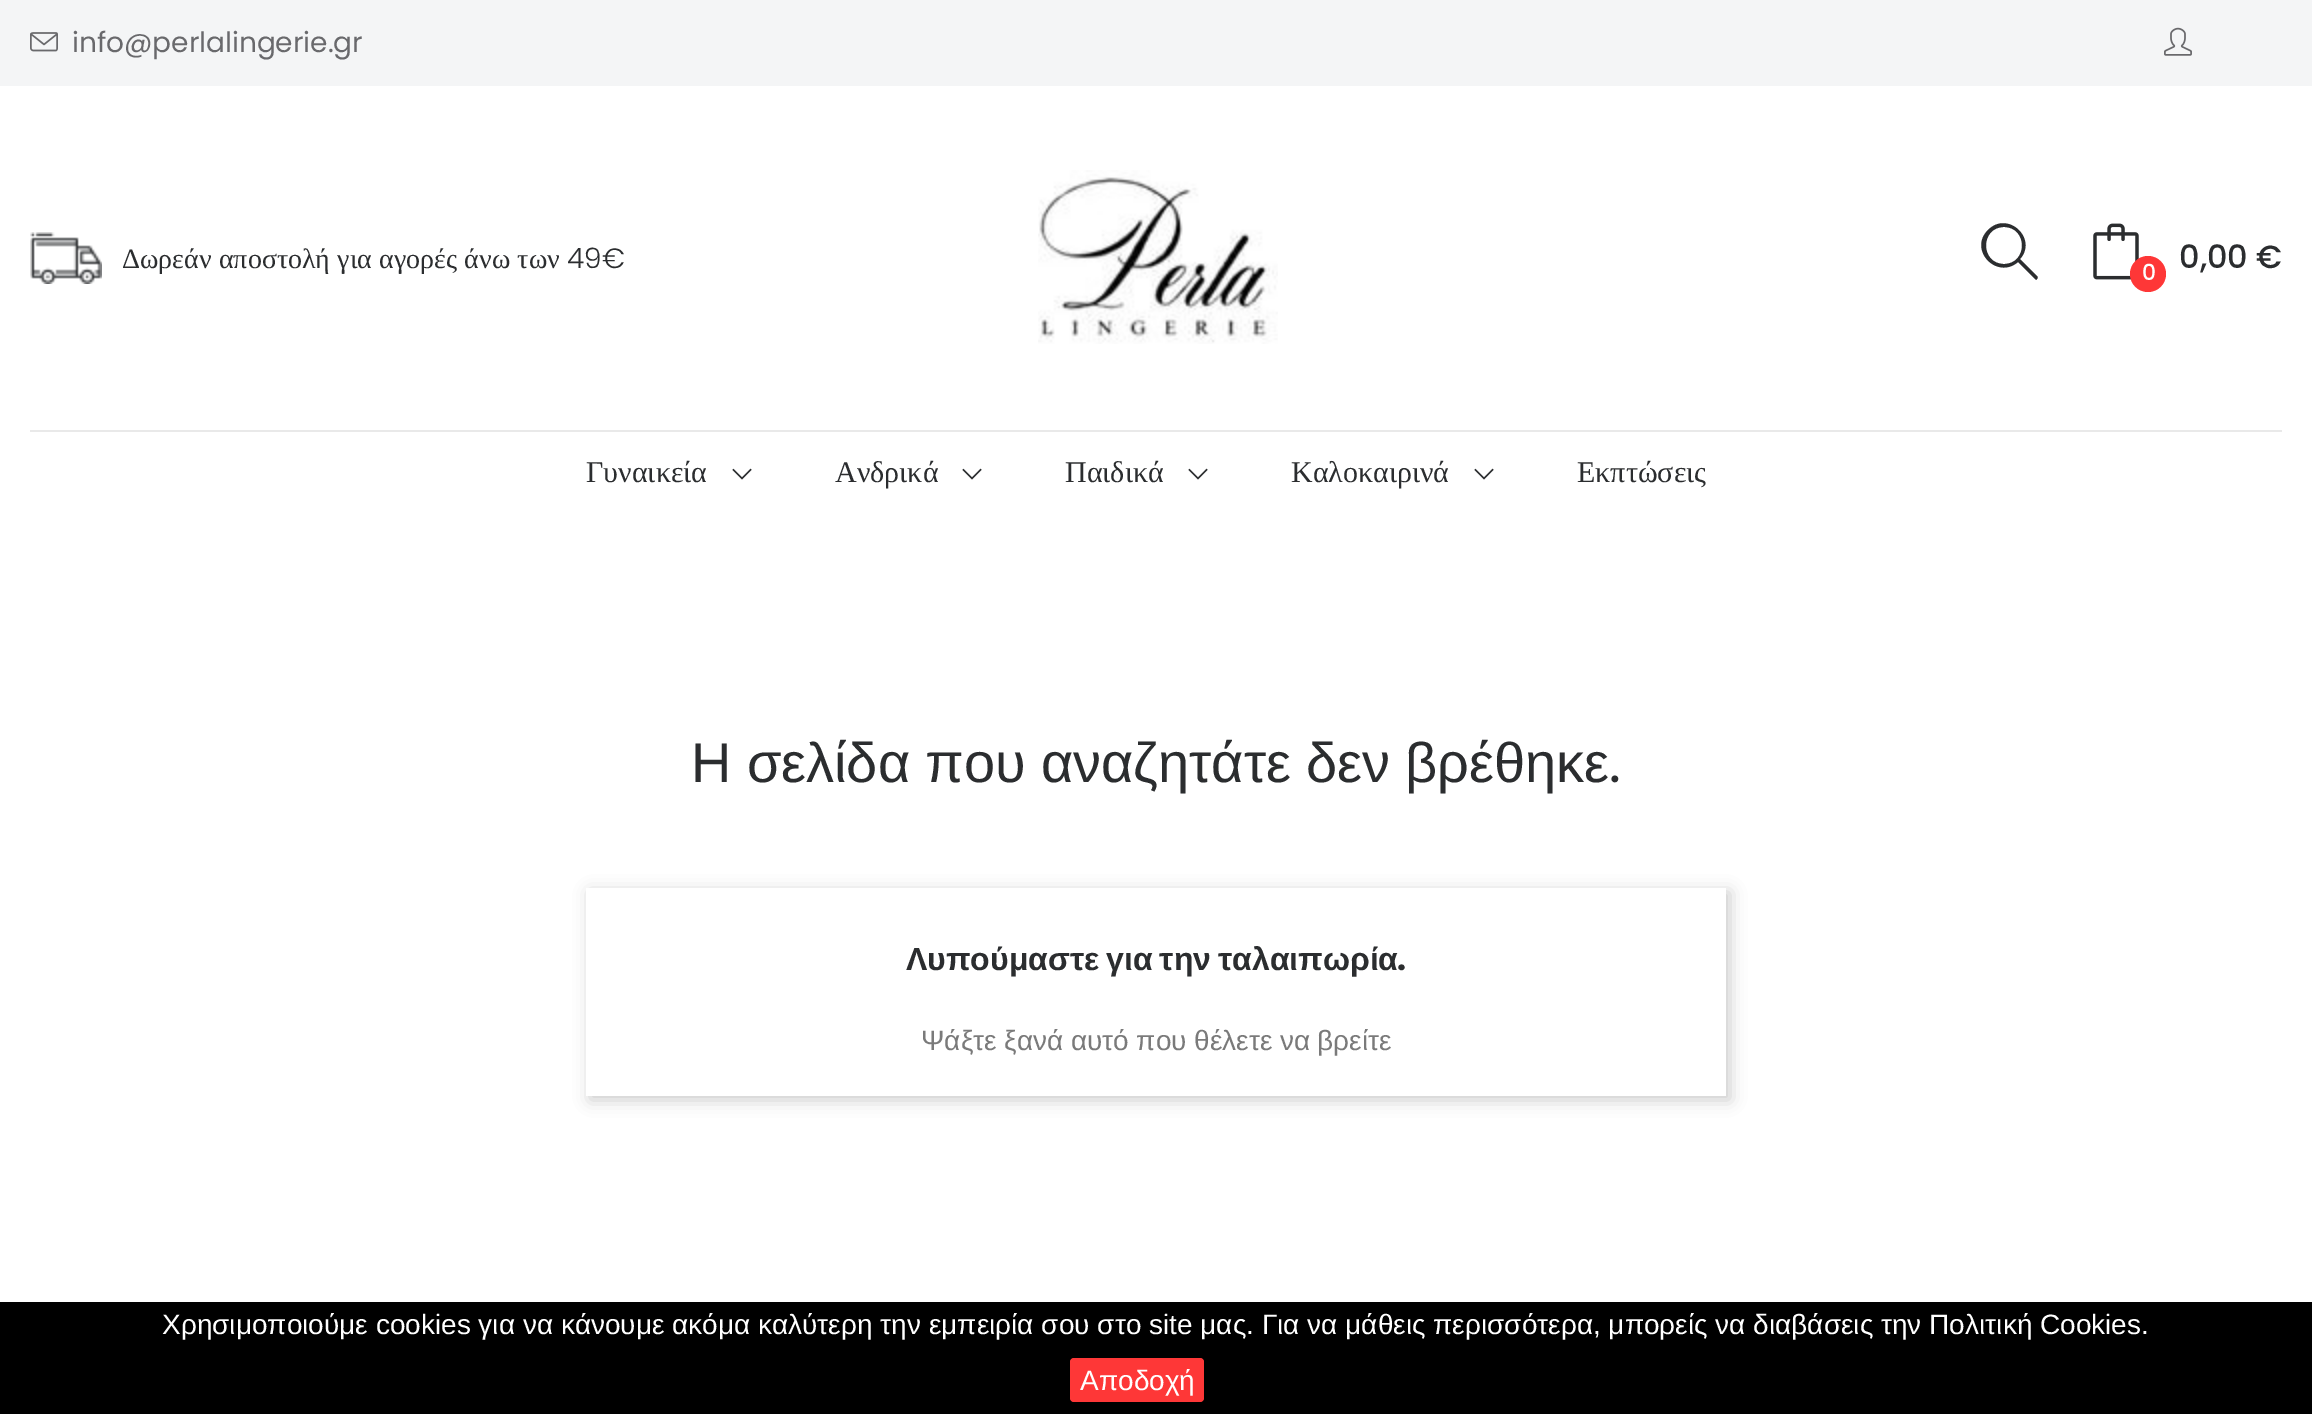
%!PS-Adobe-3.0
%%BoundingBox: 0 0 2312 1414
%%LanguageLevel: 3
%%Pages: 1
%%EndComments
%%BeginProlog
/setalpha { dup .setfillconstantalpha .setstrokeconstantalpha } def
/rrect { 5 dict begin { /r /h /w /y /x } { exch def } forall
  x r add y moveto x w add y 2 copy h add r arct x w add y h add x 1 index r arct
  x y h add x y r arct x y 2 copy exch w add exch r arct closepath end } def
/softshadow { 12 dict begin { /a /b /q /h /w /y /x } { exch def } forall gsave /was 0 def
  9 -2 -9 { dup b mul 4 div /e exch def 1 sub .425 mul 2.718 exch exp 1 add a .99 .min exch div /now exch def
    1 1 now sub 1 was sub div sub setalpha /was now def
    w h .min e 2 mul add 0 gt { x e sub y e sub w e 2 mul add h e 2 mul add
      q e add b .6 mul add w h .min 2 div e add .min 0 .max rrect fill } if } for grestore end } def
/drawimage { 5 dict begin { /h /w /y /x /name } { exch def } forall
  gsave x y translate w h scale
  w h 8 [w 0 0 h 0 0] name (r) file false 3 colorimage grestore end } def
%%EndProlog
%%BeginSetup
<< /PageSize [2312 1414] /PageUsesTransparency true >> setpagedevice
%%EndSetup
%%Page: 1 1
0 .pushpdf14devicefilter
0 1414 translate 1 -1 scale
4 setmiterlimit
1 setgray
0 0 2312 1414 rectfill
0.957 0.961 0.965 setrgbcolor
0 0 2312 86 rectfill
(images/1.raw) 30 32 28 20 drawimage
(images/2.raw) 2164 27 28 29 drawimage
(images/3.raw) 30 232 72 52 drawimage
(images/4.raw) 1038 170 240 174 drawimage
0.169 0.176 0.184 setrgbcolor
newpath 2037 276 moveto 2038 277 2038 278 2037 279 curveto 2037 280 2036 280 2035 279 curveto 2018 262 lineto 1997 280 1968 250 1988 230 curveto 2008 210 2038 239 2020 259 curveto closepath 2004 264 moveto 2028 264 2028 227 2004 227 curveto 1980 227 1980 264 2004 264 curveto closepath fill
(images/5.raw) 2093 223 46 57 drawimage
0.996 0.216 0.216 setrgbcolor
newpath 2148 274 18 0 360 arc closepath fill
0.914 setgray
30 430 2252 2 rectfill
(images/6.raw) 732 468 20 12 drawimage
(images/6.raw) 962 468 20 12 drawimage
(images/6.raw) 1188 468 20 12 drawimage
(images/6.raw) 1474 468 20 12 drawimage
gsave
newpath 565 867 moveto 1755 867 lineto 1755 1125 lineto 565 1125 lineto closepath 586 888 moveto 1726 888 lineto 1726 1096 lineto 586 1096 lineto closepath eoclip newpath
0 setgray
590 892 1140 208 0 8 0.2 softshadow
grestore
0 setgray
0 1302 2312 112 rectfill
0.996 0.216 0.216 setrgbcolor
1070 1358 134 44 4 rrect fill
/Poppins-Regular [28 0 0 -28 0 0] selectfont
0.412 0.412 0.424 setrgbcolor
72 52 moveto (info@perlalingerie.gr) show
/LiberationSerif-Regular [28 0 0 -28 0 0] selectfont
0.169 0.176 0.184 setrgbcolor
122 268 moveto 0.25 0 32 (Δωρεάν αποστολή για αγορές άνω των) widthshow
/Poppins-Light [28 0 0 -28 0 0] selectfont
567 268 moveto (49€) show
/Poppins-Medium [22 0 0 -22 0 0] selectfont
1 setgray
2142 280 moveto (0) show
/Poppins-Medium [32 0 0 -32 0 0] selectfont
0.169 0.176 0.184 setrgbcolor
2179 268 moveto (0,00 €) show
/LiberationSerif-Regular [30 0 0 -30 0 0] selectfont
586 482 moveto (Γυναικεία) show
835 482 moveto (Ανδρικά) show
1065 482 moveto (Παιδικά) show
1291 482 moveto (Καλοκαιρινά) show
1577 482 moveto (Εκπτώσεις) show
/LiberationSans-Regular [56 0 0 -56 0 0] selectfont
691 782 moveto -0.5 0 32 (Η σελίδα που αναζητάτε δεν βρέθηκε) widthshow
/Poppins-Regular [56 0 0 -56 0 0] selectfont
1609 782 moveto (.) show
/LiberationSans-Bold [32 0 0 -32 0 0] selectfont
906 970 moveto -2 0 32 (Λυπούμαστε για την ταλαιπωρία) widthshow
/Poppins-Bold [32 0 0 -32 0 0] selectfont
1397 970 moveto (.) show
/LiberationSans-Regular [28 0 0 -28 0 0] selectfont
0.478 setgray
921 1050 moveto -0.25 0 32 (Ψάξτε ξανά αυτό που θέλετε να βρείτε) widthshow
1 setgray
162 1334 moveto (Χρησιμοποιούμε cookies για να κάνουμε ακόμα καλύτερη την εμπειρία σου στο site μας. Για να μάθεις περισσότερα, μπορείς να διαβάσεις την Πολιτική Cookies.) show
1080 1390 moveto (Αποδοχή) show
.poppdf14devicefilter showpage
%%EOF
